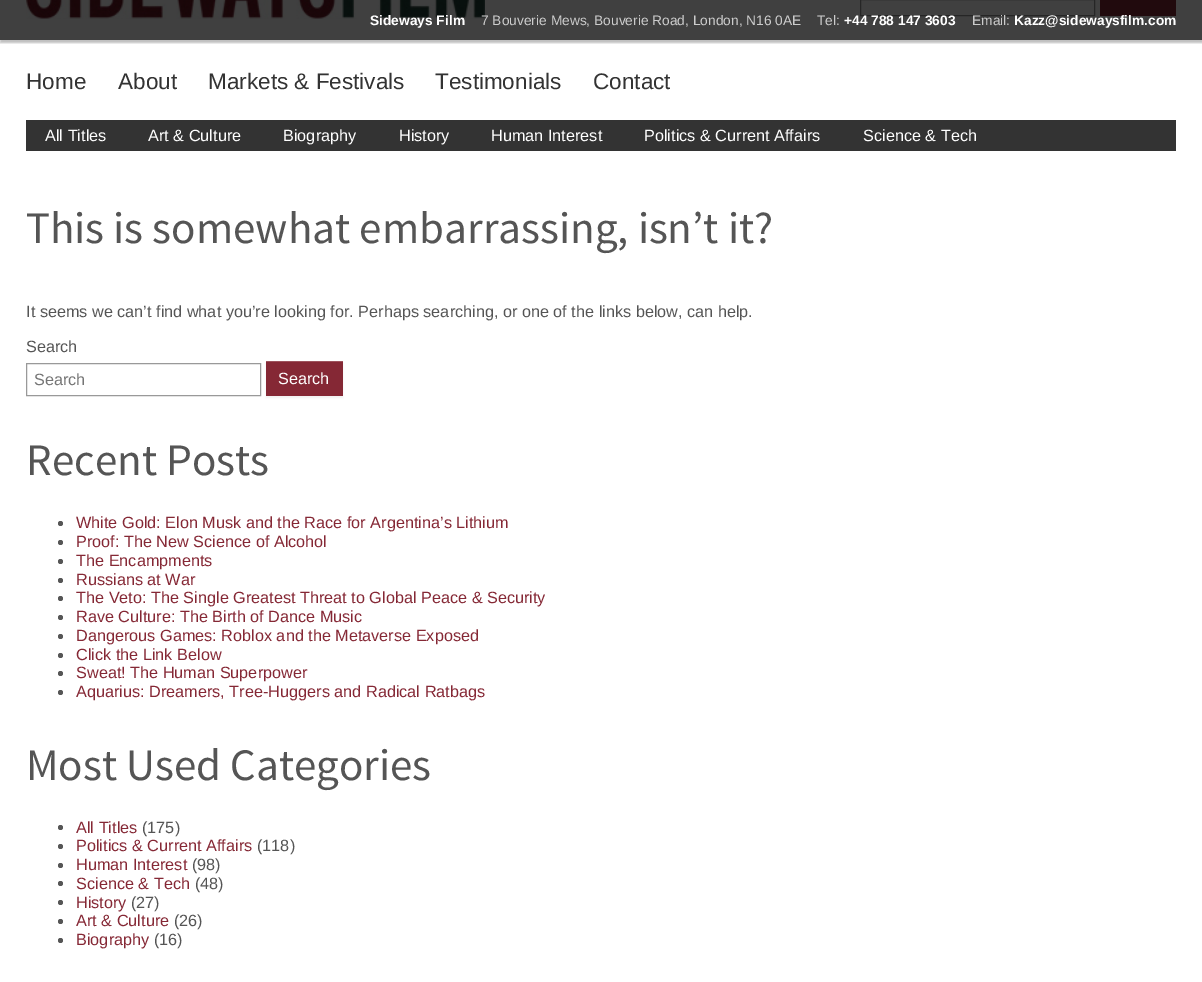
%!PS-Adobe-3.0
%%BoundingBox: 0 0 1202 982
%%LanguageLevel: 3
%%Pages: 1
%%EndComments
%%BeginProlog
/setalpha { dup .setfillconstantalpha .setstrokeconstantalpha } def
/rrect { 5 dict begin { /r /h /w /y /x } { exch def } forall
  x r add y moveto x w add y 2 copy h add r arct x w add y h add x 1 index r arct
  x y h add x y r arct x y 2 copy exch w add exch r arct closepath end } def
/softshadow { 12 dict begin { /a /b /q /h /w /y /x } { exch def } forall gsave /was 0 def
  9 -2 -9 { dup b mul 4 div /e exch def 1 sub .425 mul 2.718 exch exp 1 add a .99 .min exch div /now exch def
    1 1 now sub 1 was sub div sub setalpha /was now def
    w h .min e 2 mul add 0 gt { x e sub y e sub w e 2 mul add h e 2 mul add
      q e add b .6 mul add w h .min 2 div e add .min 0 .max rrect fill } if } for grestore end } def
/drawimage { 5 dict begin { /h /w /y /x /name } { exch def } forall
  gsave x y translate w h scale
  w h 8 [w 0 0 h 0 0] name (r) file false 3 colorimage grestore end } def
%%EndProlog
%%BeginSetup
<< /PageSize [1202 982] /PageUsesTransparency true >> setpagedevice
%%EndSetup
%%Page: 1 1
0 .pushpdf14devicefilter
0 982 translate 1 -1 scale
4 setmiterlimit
1 setgray
0 0 1202 982 rectfill
0.251 setgray
0 0 1202 40 rectfill
(images/1.raw) 26 0 459 19 drawimage
0.149 setgray
860.5 -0.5 234 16 rectstroke
0.129 0.039 0.051 setrgbcolor
1100 0 76 16 rectfill
gsave
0 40 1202 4 rectclip
0 setgray
0 3 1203 40 0 1 0.25 softshadow
grestore
0.2 setgray
26 120 1150 31 rectfill
0.6 setgray
26.5 363.5 234 32 rectstroke
0 setgray
266 363 77 35 0 1 0.05 softshadow
0.522 0.157 0.208 setrgbcolor
266 362 77 34 rectfill
0.616 0.325 0.365 setrgbcolor
266 361 77 1 rectfill
0.333 setgray
newpath 60.5 523.5 2.5 0 360 arc closepath fill
newpath 60.5 542.5 2.5 0 360 arc closepath fill
newpath 60.5 561.5 2.5 0 360 arc closepath fill
newpath 60.5 580.5 2.5 0 360 arc closepath fill
newpath 60.5 598.5 2.5 0 360 arc closepath fill
newpath 60.5 617.5 2.5 0 360 arc closepath fill
newpath 60.5 636.5 2.5 0 360 arc closepath fill
newpath 60.5 655.5 2.5 0 360 arc closepath fill
newpath 60.5 673.5 2.5 0 360 arc closepath fill
newpath 60.5 692.5 2.5 0 360 arc closepath fill
newpath 60.5 827.5 2.5 0 360 arc closepath fill
newpath 60.5 846.5 2.5 0 360 arc closepath fill
newpath 60.5 865.5 2.5 0 360 arc closepath fill
newpath 60.5 883.5 2.5 0 360 arc closepath fill
newpath 60.5 902.5 2.5 0 360 arc closepath fill
newpath 60.5 921.5 2.5 0 360 arc closepath fill
newpath 60.5 940.5 2.5 0 360 arc closepath fill
/LiberationSans-Bold [13.75 0 0 -13.75 0 0] selectfont
1 setgray
370 25 moveto (Sideways Film) show
/LiberationSans-Regular [13.75 0 0 -13.75 0 0] selectfont
0.8 setgray
481 25 moveto (7 Bouverie Mews, Bouverie Road, London, N16 0AE) show
817 25 moveto (Tel:) show
/LiberationSans-Bold [13.75 0 0 -13.75 0 0] selectfont
1 setgray
844 25 moveto (+44 788 147 3603) show
/LiberationSans-Regular [13.75 0 0 -13.75 0 0] selectfont
0.8 setgray
972 25 moveto (Email:) show
/LiberationSans-Bold [13.75 0 0 -13.75 0 0] selectfont
1 setgray
1014 25 moveto (Kazz@sidewaysfilm.com) show
/LiberationSans-Regular [22.5 0 0 -22.5 0 0] selectfont
0.2 setgray
26 89 moveto (Home) show
118 89 moveto (About) show
208 89 moveto (Markets & Festivals) show
435 89 moveto (Testimonials) show
593 89 moveto (Contact) show
/LiberationSans-Regular [16.25 0 0 -16.25 0 0] selectfont
1 setgray
45 141 moveto (All Titles) show
148 141 moveto (Art & Culture) show
283 141 moveto (Biography) show
399 141 moveto (History) show
491 141 moveto (Human Interest) show
644 141 moveto (Politics & Current Affairs) show
863 141 moveto (Science & Tech) show
/SourceSansPro-Regular [45 0 0 -45 0 0] selectfont
0.333 setgray
26 243 moveto (This is somewhat embarrassing, isn’t it?) show
/LiberationSans-Regular [16.25 0 0 -16.25 0 0] selectfont
26 317 moveto (It seems we can’t find what you’re looking for. Perhaps searching, or one of the links below, can help.) show
26 352 moveto (Search) show
0.459 setgray
34 385 moveto (Search) show
1 setgray
278 384 moveto (Search) show
/SourceSansPro-Regular [45 0 0 -45 0 0] selectfont
0.333 setgray
26 475 moveto (Recent Posts) show
/LiberationSans-Regular [16.25 0 0 -16.25 0 0] selectfont
0.522 0.157 0.208 setrgbcolor
76 528 moveto (White Gold: Elon Musk and the Race for Argentina’s Lithium) show
76 547 moveto (Proof: The New Science of Alcohol) show
76 566 moveto (The Encampments) show
76 585 moveto (Russians at War) show
76 603 moveto (The Veto: The Single Greatest Threat to Global Peace & Security) show
76 622 moveto (Rave Culture: The Birth of Dance Music) show
76 641 moveto (Dangerous Games: Roblox and the Metaverse Exposed) show
76 660 moveto (Click the Link Below) show
76 678 moveto (Sweat! The Human Superpower) show
76 697 moveto (Aquarius: Dreamers, Tree-Huggers and Radical Ratbags) show
/SourceSansPro-Regular [45 0 0 -45 0 0] selectfont
0.333 setgray
26 780 moveto (Most Used Categories) show
/LiberationSans-Regular [16.25 0 0 -16.25 0 0] selectfont
0.522 0.157 0.208 setrgbcolor
76 833 moveto (All Titles) show
0.333 setgray
142 833 moveto (\(175\)) show
0.522 0.157 0.208 setrgbcolor
76 851 moveto (Politics & Current Affairs) show
0.333 setgray
257 851 moveto (\(118\)) show
0.522 0.157 0.208 setrgbcolor
76 870 moveto (Human Interest) show
0.333 setgray
192 870 moveto (\(98\)) show
0.522 0.157 0.208 setrgbcolor
76 889 moveto (Science & Tech) show
0.333 setgray
195 889 moveto (\(48\)) show
0.522 0.157 0.208 setrgbcolor
76 908 moveto (History) show
0.333 setgray
131 908 moveto (\(27\)) show
0.522 0.157 0.208 setrgbcolor
76 926 moveto (Art & Culture) show
0.333 setgray
174 926 moveto (\(26\)) show
0.522 0.157 0.208 setrgbcolor
76 945 moveto (Biography) show
0.333 setgray
154 945 moveto (\(16\)) show
.poppdf14devicefilter showpage
%%EOF
